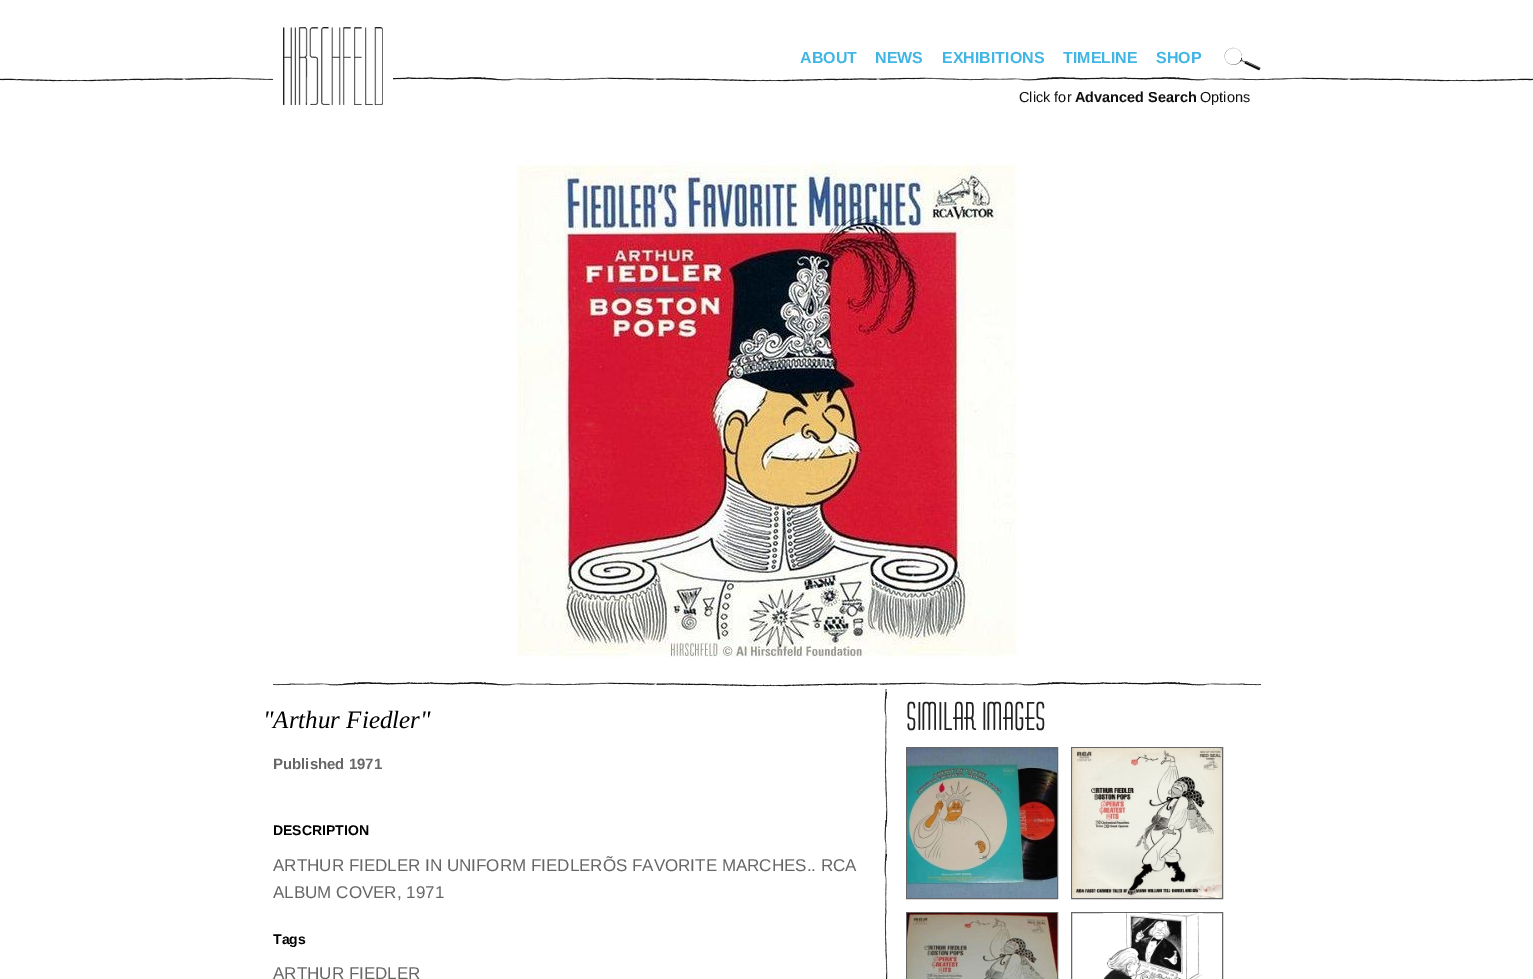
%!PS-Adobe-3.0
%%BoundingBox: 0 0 1533 979
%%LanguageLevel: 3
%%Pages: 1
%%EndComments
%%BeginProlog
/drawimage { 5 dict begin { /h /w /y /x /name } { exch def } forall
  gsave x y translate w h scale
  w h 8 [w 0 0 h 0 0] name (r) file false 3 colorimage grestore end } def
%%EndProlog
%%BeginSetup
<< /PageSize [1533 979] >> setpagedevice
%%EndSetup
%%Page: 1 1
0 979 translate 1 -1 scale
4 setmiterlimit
1 setgray
0 0 1533 979 rectfill
(images/1.raw) 0 77 1533 5 drawimage
(images/2.raw) 273 27 120 78 drawimage
(images/3.raw) 1224 47 37 24 drawimage
(images/4.raw) 273 682 988 5 drawimage
(images/5.raw) 517 161 500 496 drawimage
(images/6.raw) 883 689 5 290 drawimage
0.4 setgray
906.5 747.5 151 151 rectstroke
(images/7.raw) 907 748 150 150 drawimage
1071.5 747.5 151 151 rectstroke
(images/8.raw) 1072 748 150 150 drawimage
906.5 912.5 151 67 rectstroke
(images/9.raw) 907 913 150 66 drawimage
1071.5 912.5 151 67 rectstroke
(images/10.raw) 1103 913 100 66 drawimage
/LiberationSans-Bold [16 0 0 -16 0 0] selectfont
0.255 0.714 0.894 setrgbcolor
800 63 moveto (ABOUT) show
875 63 moveto (NEWS) show
942 63 moveto (EXHIBITIONS) show
1063 63 moveto (TIMELINE) show
1156 63 moveto (SHOP) show
/LiberationSans-Regular [14.5 0 0 -14.5 0 0] selectfont
0.067 setgray
1019 102 moveto (Click for) show
/LiberationSans-Bold [14.5 0 0 -14.5 0 0] selectfont
1075 102 moveto (Advanced Search) show
/LiberationSans-Regular [14.5 0 0 -14.5 0 0] selectfont
1200 102 moveto (Options) show
/LiberationSerif-Italic [25 0 0 -25 0 0] selectfont
0 setgray
263 728 moveto ("Arthur Fiedler") show
/LiberationSans-Bold [15 0 0 -15 0 0] selectfont
0.4 setgray
273 769 moveto (Published 1971) show
/LiberationSans-Bold [14 0 0 -14 0 0] selectfont
0 setgray
273 835 moveto (DESCRIPTION) show
/LiberationSans-Regular [17 0 0 -17 0 0] selectfont
0.4 setgray
273 871 moveto (ARTHUR FIEDLER IN UNIFORM FIEDLERÕS FAVORITE MARCHES.. RCA) show
273 898 moveto (ALBUM COVER, 1971) show
/LiberationSans-Bold [14 0 0 -14 0 0] selectfont
0 setgray
273 944 moveto (Tags) show
/LiberationSans-Regular [17 0 0 -17 0 0] selectfont
0.4 setgray
273 979 moveto (ARTHUR FIEDLER) show
/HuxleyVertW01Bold-Bold [39 0 0 -39 0 0] selectfont
0.133 setgray
906 730 moveto (SIMILAR IMAGES) show
showpage
%%EOF
